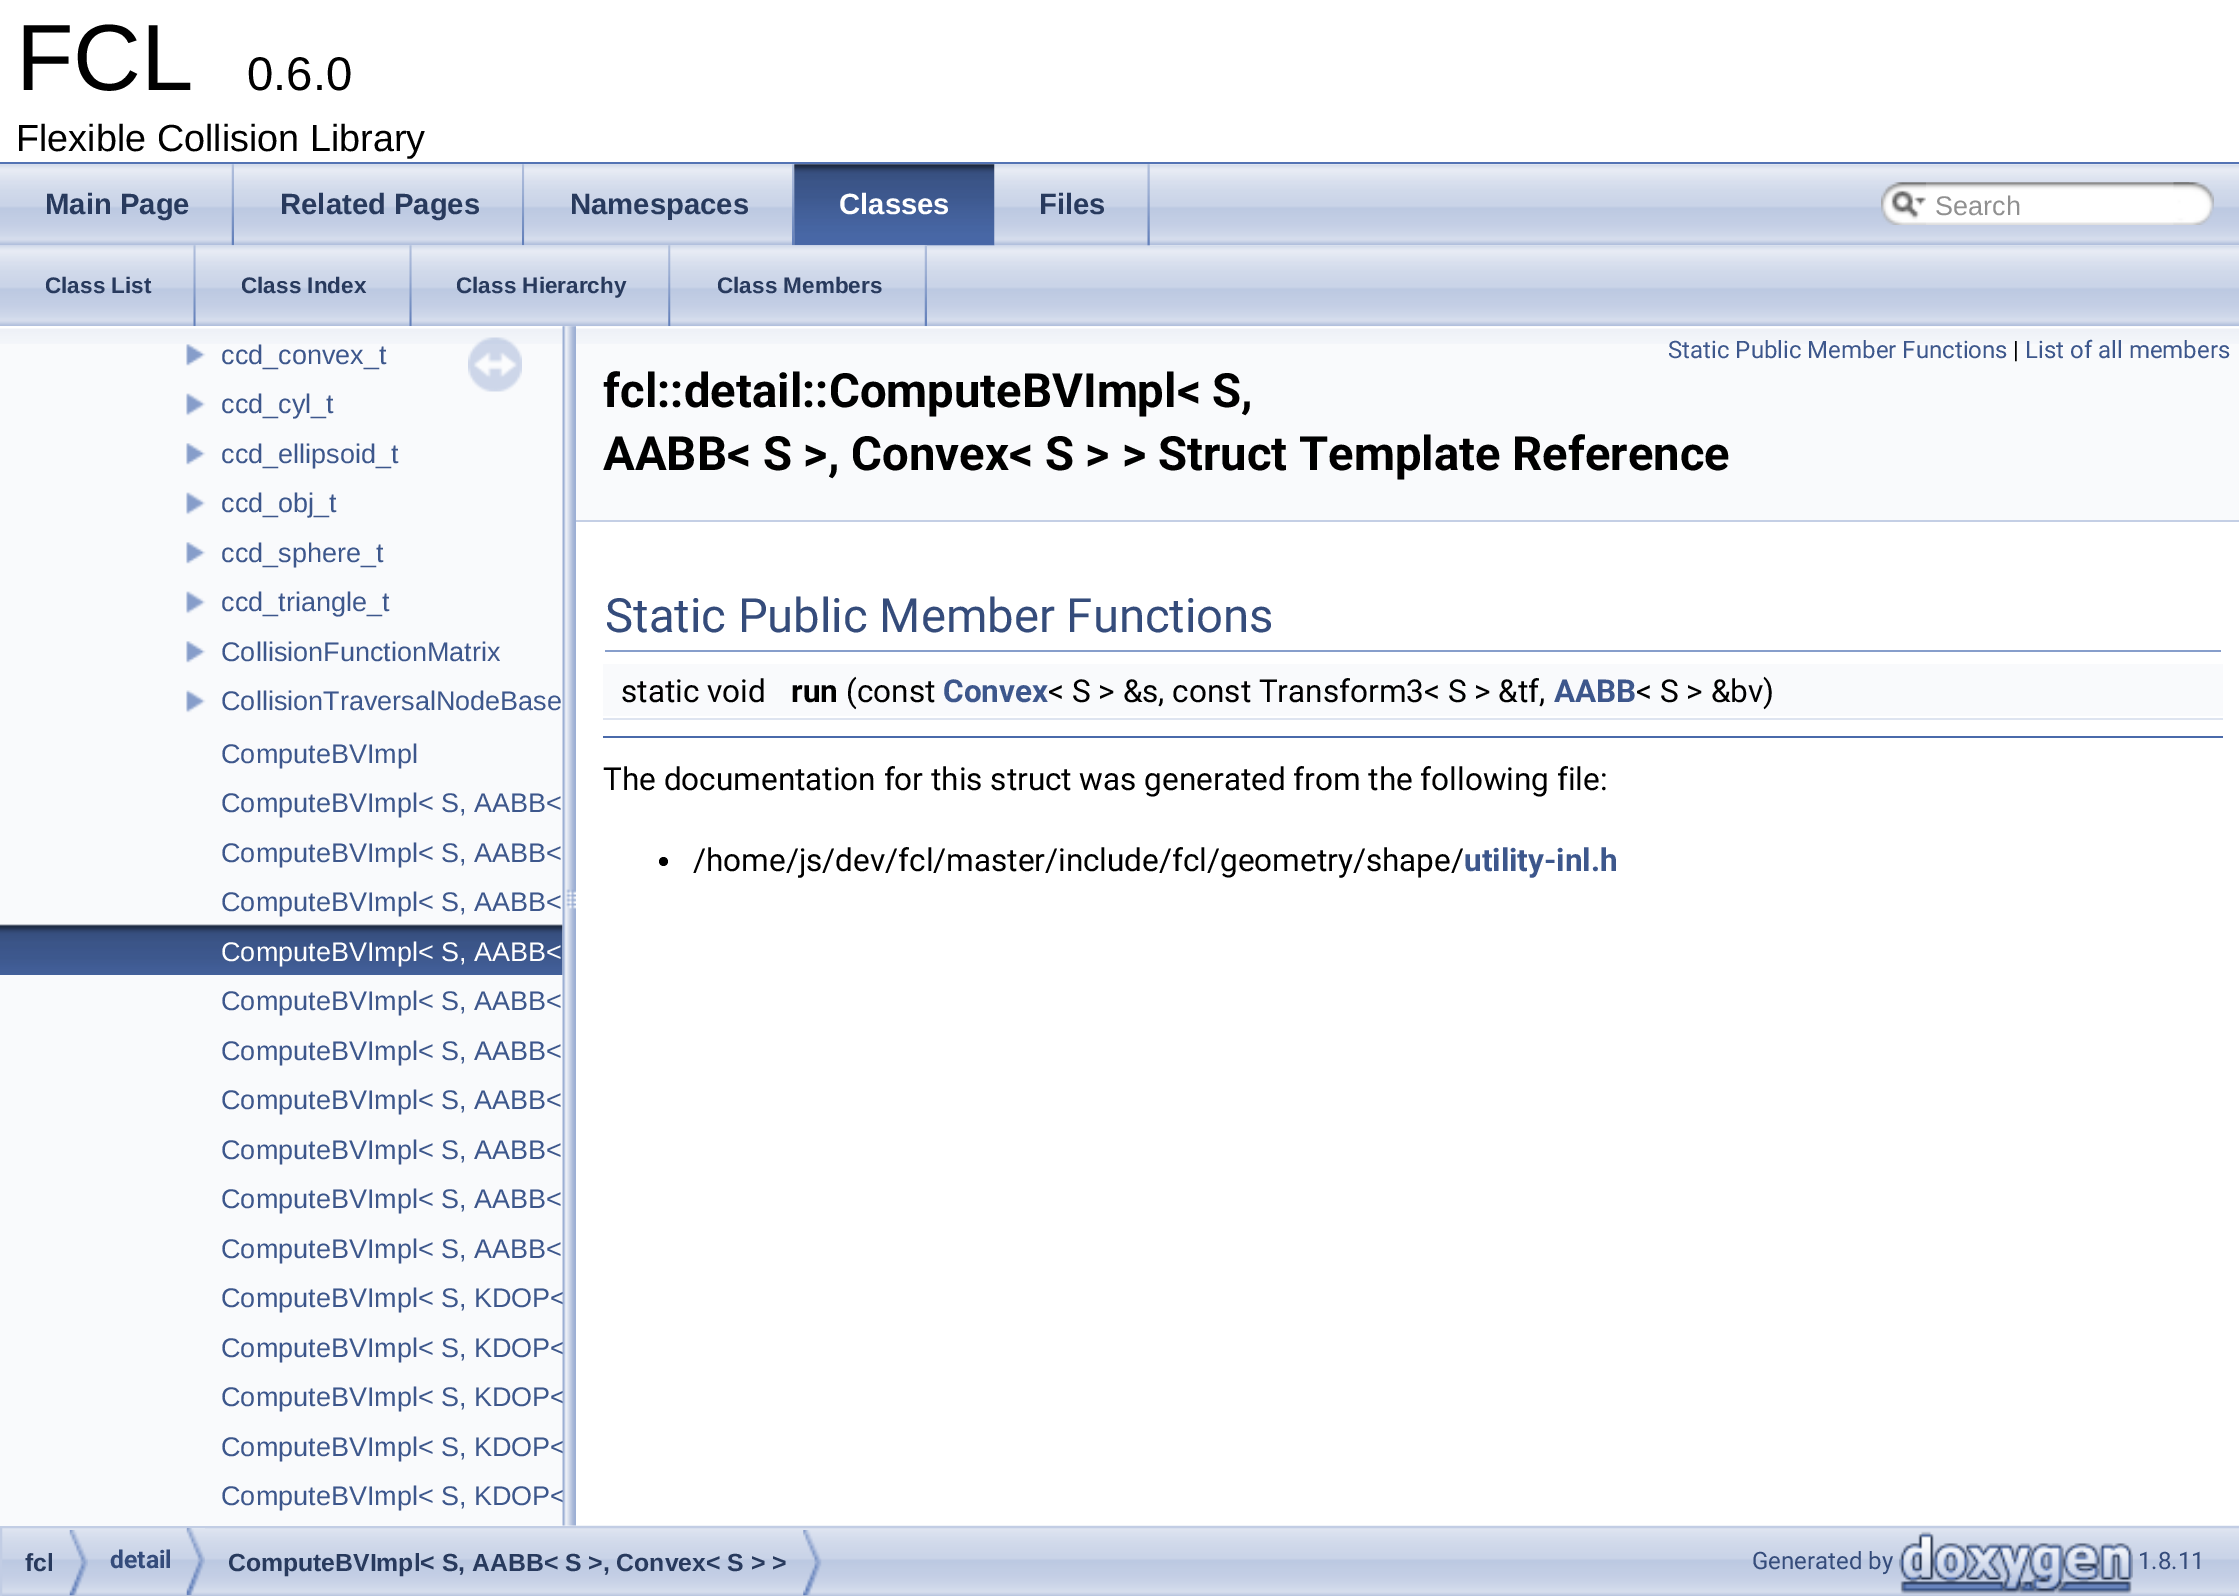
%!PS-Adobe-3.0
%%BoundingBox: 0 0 2239 1596
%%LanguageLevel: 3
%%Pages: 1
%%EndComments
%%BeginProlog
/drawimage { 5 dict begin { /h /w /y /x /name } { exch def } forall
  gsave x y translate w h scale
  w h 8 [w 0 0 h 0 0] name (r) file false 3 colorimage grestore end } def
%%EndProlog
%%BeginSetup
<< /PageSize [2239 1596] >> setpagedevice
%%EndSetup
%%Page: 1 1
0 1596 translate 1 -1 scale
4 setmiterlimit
1 setgray
0 0 2239 1596 rectfill
0.325 0.451 0.706 setrgbcolor
0 162 2239 2 rectfill
(images/1.raw) 0 164 2239 82 drawimage
(images/15.raw) 0 245 2239 82 drawimage
(images/2.raw) 0 164 234 82 drawimage
(images/3.raw) 231 164 3 82 drawimage
(images/4.raw) 234 164 290 82 drawimage
(images/5.raw) 522 164 3 82 drawimage
(images/6.raw) 524 164 270 82 drawimage
(images/5.raw) 792 164 3 82 drawimage
(images/7.raw) 794 164 201 82 drawimage
(images/8.raw) 794 164 201 82 drawimage
(images/9.raw) 994 164 156 82 drawimage
(images/10.raw) 1147 164 3 82 drawimage
(images/11.raw) 1881 182 45 43 drawimage
(images/12.raw) 1891 190 35 29 drawimage
(images/13.raw) 1926 182 264 43 drawimage
(images/14.raw) 2173 182 41 43 drawimage
(images/16.raw) 193 245 3 81 drawimage
(images/17.raw) 195 245 217 81 drawimage
(images/18.raw) 409 245 3 81 drawimage
(images/19.raw) 411 245 260 82 drawimage
(images/20.raw) 668 245 3 81 drawimage
(images/21.raw) 670 245 257 81 drawimage
(images/22.raw) 924 245 3 81 drawimage
(images/31.raw) 2 1525 2237 71 drawimage
0.976 0.98 0.988 setrgbcolor
0 326 563 1200 rectfill
(images/23.raw) 0 326 563 18 drawimage
(images/24.raw) 468 337 54 55 drawimage
(images/25.raw) 186 344 20 22 drawimage
(images/26.raw) 186 393 20 23 drawimage
(images/25.raw) 186 443 20 22 drawimage
(images/26.raw) 186 492 20 23 drawimage
(images/25.raw) 186 542 20 22 drawimage
(images/26.raw) 186 591 20 23 drawimage
(images/25.raw) 186 641 20 22 drawimage
(images/27.raw) 186 690 20 23 drawimage
(images/28.raw) 0 924 563 51 drawimage
576 326 1663 194 rectfill
(images/30.raw) 576 327 1663 17 drawimage
0.769 0.812 0.898 setrgbcolor
576 520 1663 2 rectfill
0.529 0.62 0.796 setrgbcolor
605 650 1616 2 rectfill
0.976 0.98 0.988 setrgbcolor
603 664 1620 52 rectfill
0.871 0.894 0.941 setrgbcolor
603 718 1620 2 rectfill
0.29 0.416 0.667 setrgbcolor
603 736 1620 2 rectfill
0 setgray
newpath 663.5 861.5 4.5 0 360 arc closepath fill
0.761 0.804 0.894 setrgbcolor
2 setlinewidth
1 1527 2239 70 rectstroke
(images/32.raw) 69 1530 19 66 drawimage
(images/33.raw) 186 1527 19 69 drawimage
(images/34.raw) 803 1530 19 66 drawimage
(images/35.raw) 1899 1531 234 63 drawimage
/LiberationSans-Regular [94 0 0 -94 0 0] selectfont
0 setgray
16 90 moveto (FCL) show
/LiberationSans-Regular [47.25 0 0 -47.25 0 0] selectfont
247 90 moveto (0.6.0) show
/LiberationSans-Regular [37.75 0 0 -37.75 0 0] selectfont
16 151 moveto (Flexible Collision Library) show
/LiberationSans-Bold [29.25 0 0 -29.25 0 0] selectfont
0.157 0.227 0.365 setrgbcolor
45 214 moveto (Main Page) show
280 214 moveto (Related Pages) show
570 214 moveto (Namespaces) show
1 setgray
839 214 moveto (Classes) show
0.157 0.227 0.365 setrgbcolor
1039 214 moveto (Files) show
/LiberationSans-Regular [27 0 0 -27 0 0] selectfont
0.565 setgray
1935 215 moveto (Search) show
/LiberationSans-Bold [22.5 0 0 -22.5 0 0] selectfont
0.157 0.227 0.365 setrgbcolor
45 293 moveto (Class List) show
241 293 moveto (Class Index) show
456 293 moveto (Class Hierarchy) show
717 293 moveto (Class Members) show
/LiberationSans-Regular [27 0 0 -27 0 0] selectfont
0.239 0.341 0.549 setrgbcolor
221 364 moveto (ccd_convex_t) show
221 413 moveto (ccd_cyl_t) show
221 463 moveto (ccd_ellipsoid_t) show
221 512 moveto (ccd_obj_t) show
221 562 moveto (ccd_sphere_t) show
221 611 moveto (ccd_triangle_t) show
221 661 moveto (CollisionFunctionMatrix) show
221 710 moveto (CollisionTraversalNodeBase) show
221 763 moveto (ComputeBVImpl) show
221 812 moveto (ComputeBVImpl< S, AABB<) show
221 862 moveto (ComputeBVImpl< S, AABB<) show
221 911 moveto (ComputeBVImpl< S, AABB<) show
1 setgray
221 961 moveto (ComputeBVImpl< S, AABB<) show
0.239 0.341 0.549 setrgbcolor
221 1010 moveto (ComputeBVImpl< S, AABB<) show
221 1060 moveto (ComputeBVImpl< S, AABB<) show
221 1109 moveto (ComputeBVImpl< S, AABB<) show
221 1159 moveto (ComputeBVImpl< S, AABB<) show
221 1208 moveto (ComputeBVImpl< S, AABB<) show
221 1258 moveto (ComputeBVImpl< S, AABB<) show
221 1307 moveto (ComputeBVImpl< S, KDOP<) show
221 1357 moveto (ComputeBVImpl< S, KDOP<) show
221 1406 moveto (ComputeBVImpl< S, KDOP<) show
221 1456 moveto (ComputeBVImpl< S, KDOP<) show
221 1505 moveto (ComputeBVImpl< S, KDOP<) show
(images/29.raw) 562 326 14 1200 drawimage
/Roboto-Regular [24 0 0 -24 0 0] selectfont
1668 358 moveto (Static Public Member Functions) show
0 setgray
2013 358 moveto (|) show
0.239 0.341 0.549 setrgbcolor
2025 358 moveto (List of all members) show
/Roboto-Bold [47.25 0 0 -47.25 0 0] selectfont
0 setgray
603 407 moveto (fcl::detail::ComputeBVImpl< S,) show
603 470 moveto (AABB< S >, Convex< S > > Struct Template Reference) show
/Roboto-Regular [47.25 0 0 -47.25 0 0] selectfont
0.208 0.298 0.482 setrgbcolor
605 632 moveto (Static Public Member Functions) show
/Roboto-Regular [31.5 0 0 -31.5 0 0] selectfont
0 setgray
621 702 moveto (static void) show
/Roboto-Bold [31.5 0 0 -31.5 0 0] selectfont
791 702 moveto (run) show
/Roboto-Regular [31.5 0 0 -31.5 0 0] selectfont
846 702 moveto (\(const) show
/Roboto-Bold [31.5 0 0 -31.5 0 0] selectfont
0.239 0.341 0.549 setrgbcolor
943 702 moveto (Convex) show
/Roboto-Regular [31.5 0 0 -31.5 0 0] selectfont
0 setgray
1048 702 moveto (< S > &s, const Transform3< S > &tf,) show
/Roboto-Bold [31.5 0 0 -31.5 0 0] selectfont
0.239 0.341 0.549 setrgbcolor
1554 702 moveto (AABB) show
/Roboto-Regular [31.5 0 0 -31.5 0 0] selectfont
0 setgray
1636 702 moveto (< S > &bv\)) show
603 790 moveto (The documentation for this struct was generated from the following file:) show
693 871 moveto (/home/js/dev/fcl/master/include/fcl/geometry/shape/) show
/Roboto-Bold [31.5 0 0 -31.5 0 0] selectfont
0.239 0.341 0.549 setrgbcolor
1464 871 moveto (utility-inl.h) show
/LiberationSans-Bold [24.75 0 0 -24.75 0 0] selectfont
0.157 0.227 0.365 setrgbcolor
25 1571 moveto (fcl) show
/Roboto-Bold [24.75 0 0 -24.75 0 0] selectfont
0.208 0.298 0.482 setrgbcolor
110 1568 moveto (detail) show
/LiberationSans-Bold [24.75 0 0 -24.75 0 0] selectfont
0.157 0.227 0.365 setrgbcolor
228 1571 moveto (ComputeBVImpl< S, AABB< S >, Convex< S > >) show
/Roboto-Regular [24 0 0 -24 0 0] selectfont
0.208 0.298 0.482 setrgbcolor
1752 1569 moveto (Generated by) show
2138 1569 moveto (1.8.11) show
showpage
%%EOF
